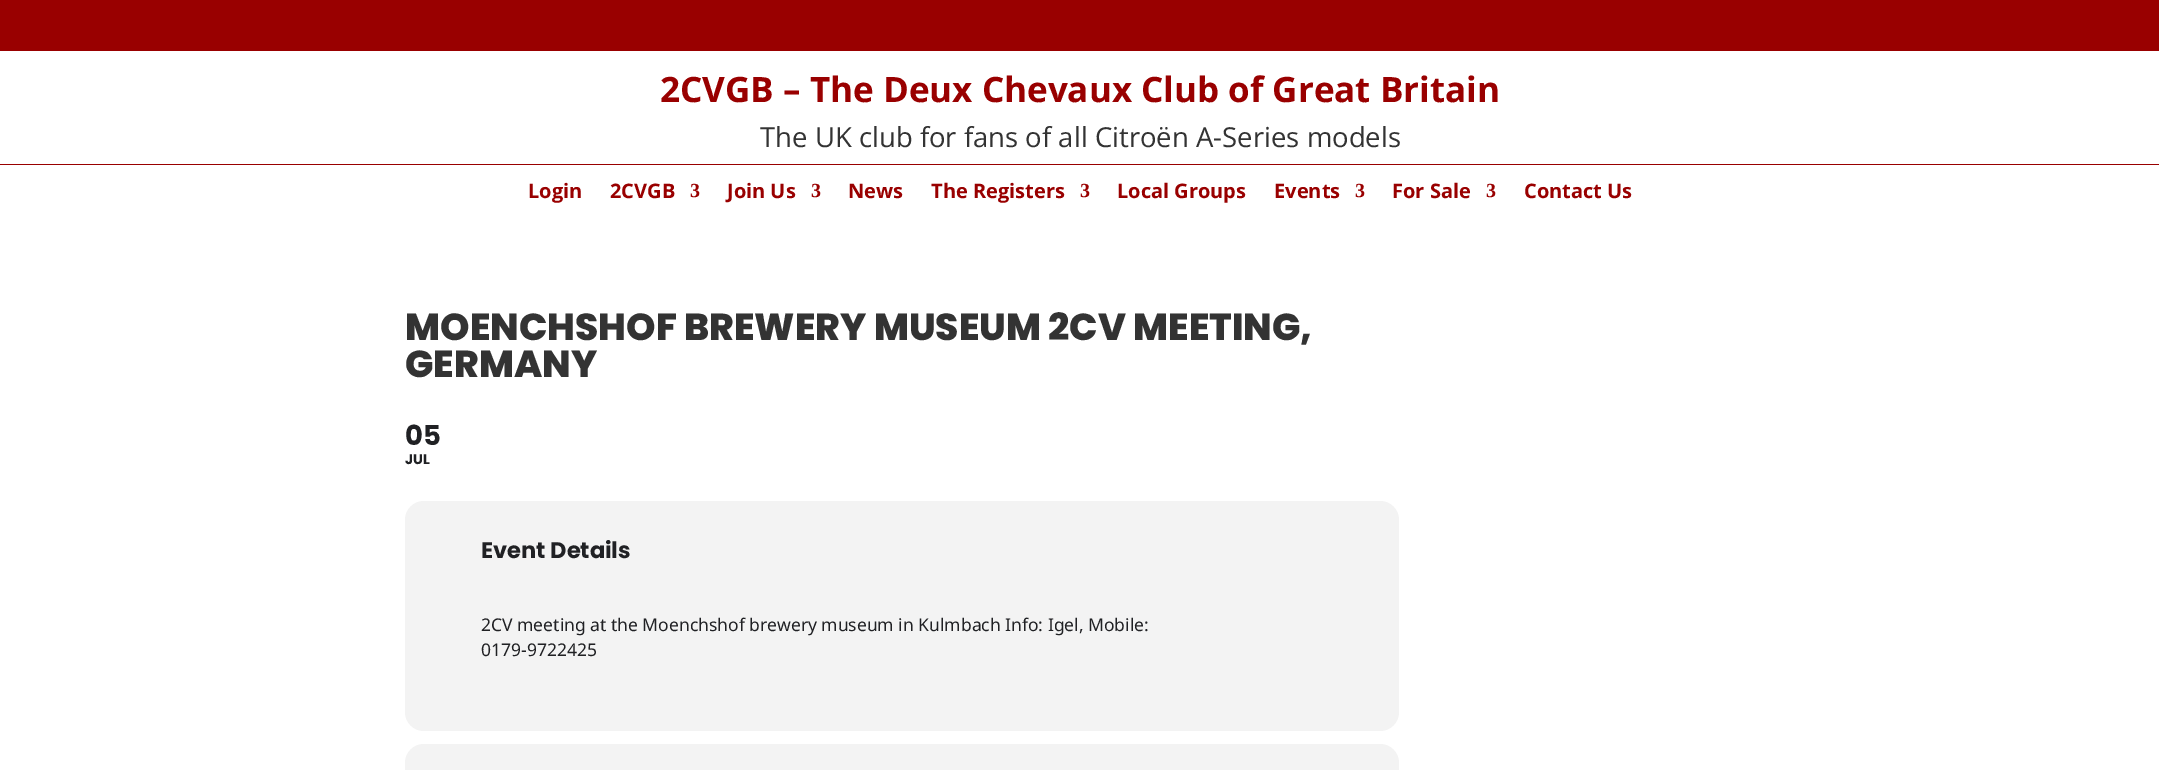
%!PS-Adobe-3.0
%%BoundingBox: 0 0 2159 770
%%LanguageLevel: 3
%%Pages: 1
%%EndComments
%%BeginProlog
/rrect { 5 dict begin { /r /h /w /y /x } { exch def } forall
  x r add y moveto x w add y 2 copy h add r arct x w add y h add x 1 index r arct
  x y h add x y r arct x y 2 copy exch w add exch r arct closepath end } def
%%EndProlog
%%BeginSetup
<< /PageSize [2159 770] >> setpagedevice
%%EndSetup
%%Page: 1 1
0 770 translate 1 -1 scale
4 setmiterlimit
1 setgray
0 0 2159 770 rectfill
0.6 0 0 setrgbcolor
0 0 2159 51 rectfill
0 164 2159 1 rectfill
0.953 setgray
405 501 994 230 19 rrect fill
405 744 994 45 19 rrect fill
/OpenSans-Bold [35 0 0 -35 0 0] selectfont
0.6 0 0 setrgbcolor
660 102 moveto (2CVGB – The Deux Chevaux Club of Great Britain) show
/OpenSans-Regular [27.5 0 0 -27.5 0 0] selectfont
0.2 setgray
760 147 moveto (The UK club for fans of all Citroën A-Series models) show
/OpenSans-Bold [20 0 0 -20 0 0] selectfont
0.6 0 0 setrgbcolor
528 198 moveto (Login) show
610 198 moveto (2CVGB) show
/LiberationSerif-Bold [20 0 0 -20 0 0] selectfont
690 197 moveto (3) show
/OpenSans-Bold [20 0 0 -20 0 0] selectfont
727 198 moveto (Join Us) show
/LiberationSerif-Bold [20 0 0 -20 0 0] selectfont
811 197 moveto (3) show
/OpenSans-Bold [20 0 0 -20 0 0] selectfont
848 198 moveto (News) show
931 198 moveto (The Registers) show
/LiberationSerif-Bold [20 0 0 -20 0 0] selectfont
1080 197 moveto (3) show
/OpenSans-Bold [20 0 0 -20 0 0] selectfont
1117 198 moveto (Local Groups) show
1274 198 moveto (Events) show
/LiberationSerif-Bold [20 0 0 -20 0 0] selectfont
1355 197 moveto (3) show
/OpenSans-Bold [20 0 0 -20 0 0] selectfont
1392 198 moveto (For Sale) show
/LiberationSerif-Bold [20 0 0 -20 0 0] selectfont
1486 197 moveto (3) show
/OpenSans-Bold [20 0 0 -20 0 0] selectfont
1524 198 moveto (Contact Us) show
/Poppins-ExtraBold [37.5 0 0 -37.5 0 0] selectfont
0.2 setgray
405 340 moveto (MOENCHSHOF BREWERY MUSEUM 2CV MEETING,) show
405 377 moveto (GERMANY) show
/Poppins-Bold [27.5 0 0 -27.5 0 0] selectfont
0.125 0.129 0.141 setrgbcolor
405 445 moveto (05) show
/Poppins-Bold [14 0 0 -14 0 0] selectfont
405 464 moveto (JUL) show
/Poppins-Bold [22.5 0 0 -22.5 0 0] selectfont
481 558 moveto (Event Details) show
/NotoSans-Regular [17.5 0 0 -17.5 0 0] selectfont
481 631 moveto (2CV meeting at the Moenchshof brewery museum in Kulmbach Info: Igel, Mobile:) show
481 656 moveto (0179-9722425) show
showpage
%%EOF
